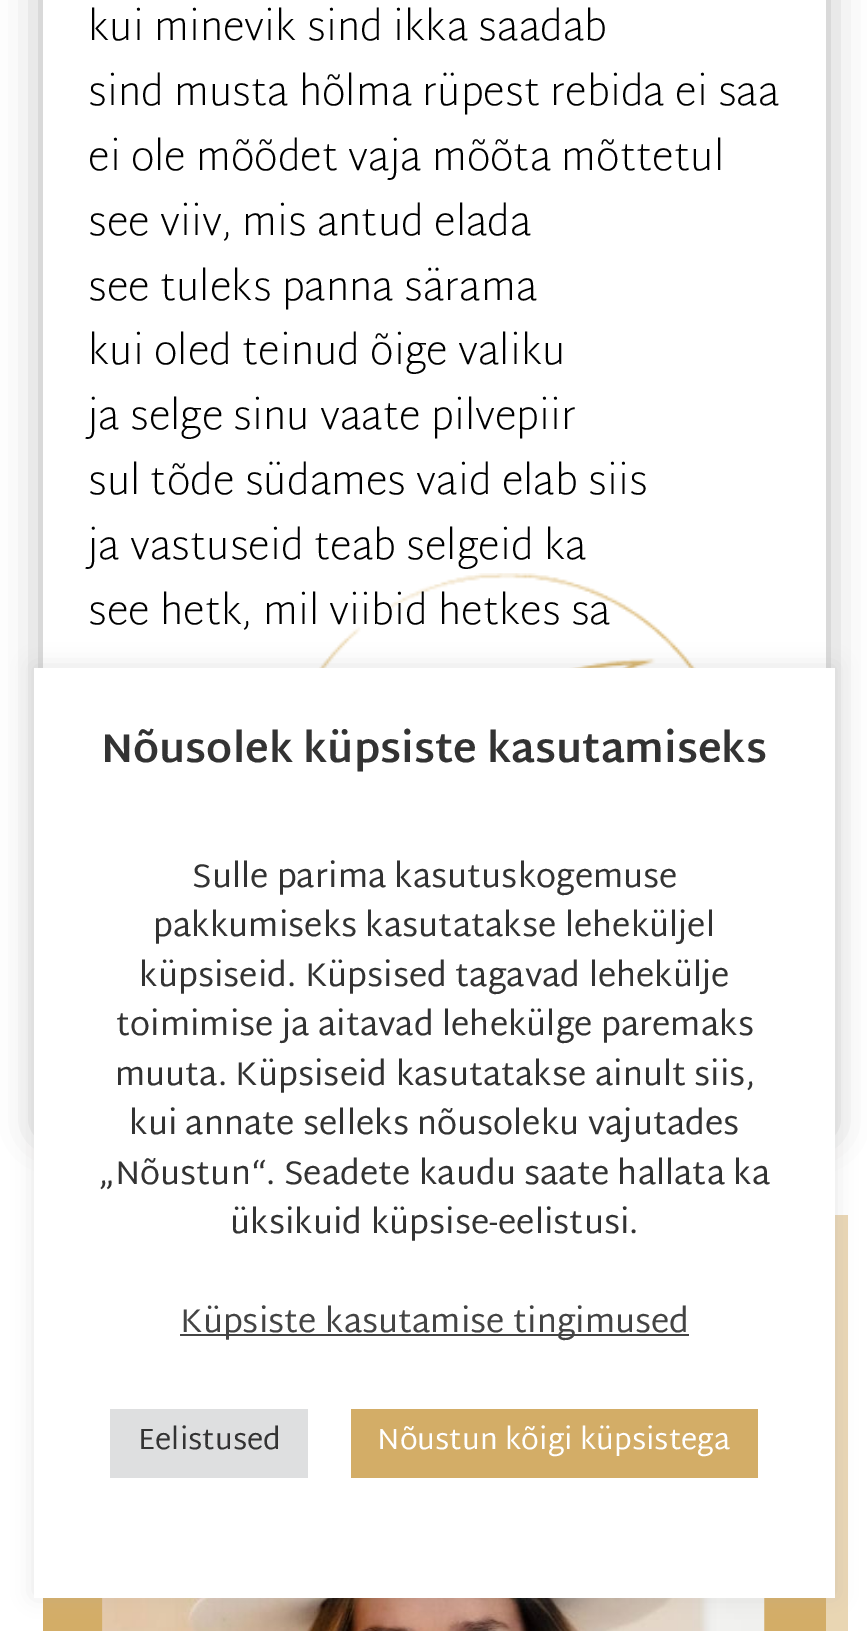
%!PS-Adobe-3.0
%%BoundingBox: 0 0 867 1631
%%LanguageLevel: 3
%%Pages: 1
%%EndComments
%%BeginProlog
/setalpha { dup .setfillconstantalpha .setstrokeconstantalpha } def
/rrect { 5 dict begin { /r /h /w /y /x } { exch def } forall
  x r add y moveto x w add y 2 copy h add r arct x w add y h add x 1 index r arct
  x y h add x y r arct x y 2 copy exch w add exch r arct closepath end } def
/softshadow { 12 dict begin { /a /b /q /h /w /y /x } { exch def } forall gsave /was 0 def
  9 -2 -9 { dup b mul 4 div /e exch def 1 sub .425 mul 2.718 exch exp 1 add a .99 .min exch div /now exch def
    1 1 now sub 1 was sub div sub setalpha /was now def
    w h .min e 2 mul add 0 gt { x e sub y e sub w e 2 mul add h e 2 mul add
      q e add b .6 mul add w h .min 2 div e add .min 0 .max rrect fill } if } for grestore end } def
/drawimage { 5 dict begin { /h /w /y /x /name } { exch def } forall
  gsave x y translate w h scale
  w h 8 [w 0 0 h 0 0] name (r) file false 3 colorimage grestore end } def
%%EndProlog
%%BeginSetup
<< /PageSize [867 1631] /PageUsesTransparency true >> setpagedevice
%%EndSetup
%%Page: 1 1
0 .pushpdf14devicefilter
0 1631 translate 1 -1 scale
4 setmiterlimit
1 setgray
0 0 867 1631 rectfill
gsave
newpath 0 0 moveto 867 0 lineto 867 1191 lineto 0 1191 lineto closepath 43 -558 moveto 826 -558 lineto 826 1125 lineto 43 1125 lineto closepath eoclip newpath
0 setgray
43 -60 783 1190 0 20 0.3 softshadow
grestore
(images/1.raw) 319 573 377 95 drawimage
0.914 0.839 0.702 setrgbcolor
newpath 65 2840 moveto 65 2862 lineto 848 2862 lineto 848 1215 lineto 826 1215 lineto 826 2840 lineto closepath fill
0.827 0.678 0.404 setrgbcolor
43 1598 783 33 rectfill
(images/2.raw) 102 1598 663 33 drawimage
0.675 0.671 0.671 setrgbcolor
34 666 801 929 0 11 0.3 softshadow
1 setgray
34 668 801 930 rectfill
0.267 setgray
180 1334 509 2 rectfill
0.871 0.875 0.878 setrgbcolor
110 1409 198 69 rectfill
0.827 0.678 0.404 setrgbcolor
351 1409 407 69 rectfill
/MartelSans-ExtraLight [40.5 0 0 -40.5 0 0] selectfont
0 setgray
88 40 moveto (kui minevik sind ikka saadab) show
88 105 moveto (sind musta hõlma rüpest rebida ei saa) show
88 170 moveto (ei ole mõõdet vaja mõõta mõttetul) show
88 235 moveto (see viiv, mis antud elada) show
88 300 moveto (see tuleks panna särama) show
88 364 moveto (kui oled teinud õige valiku) show
88 429 moveto (ja selge sinu vaate pilvepiir) show
88 494 moveto (sul tõde südames vaid elab siis) show
88 559 moveto (ja vastuseid teab selgeid ka) show
88 624 moveto (see hetk, mil viibid hetkes sa) show
/MartelSans-Bold [40.5 0 0 -40.5 0 0] selectfont
0.2 setgray
101 762 moveto (Nõusolek küpsiste kasutamiseks) show
/MartelSans-Regular [33 0 0 -33 0 0] selectfont
192 887 moveto (Sulle parima kasutuskogemuse) show
153 936 moveto (pakkumiseks kasutatakse leheküljel) show
139 986 moveto (küpsiseid. Küpsised tagavad lehekülje) show
116 1035 moveto (toimimise ja aitavad lehekülge paremaks) show
115 1085 moveto (muuta. Küpsiseid kasutatakse ainult siis,) show
129 1134 moveto (kui annate selleks nõusoleku vajutades) show
99 1184 moveto („Nõustun“. Seadete kaudu saate hallata ka) show
230 1233 moveto (üksikuid küpsise-eelistusi.) show
0.267 setgray
180 1332 moveto (Küpsiste kasutamise tingimused) show
/MartelSans-Regular [29.25 0 0 -29.25 0 0] selectfont
0.2 setgray
138 1449 moveto (Eelistused) show
1 setgray
377 1449 moveto (Nõustun kõigi küpsistega) show
.poppdf14devicefilter showpage
%%EOF
